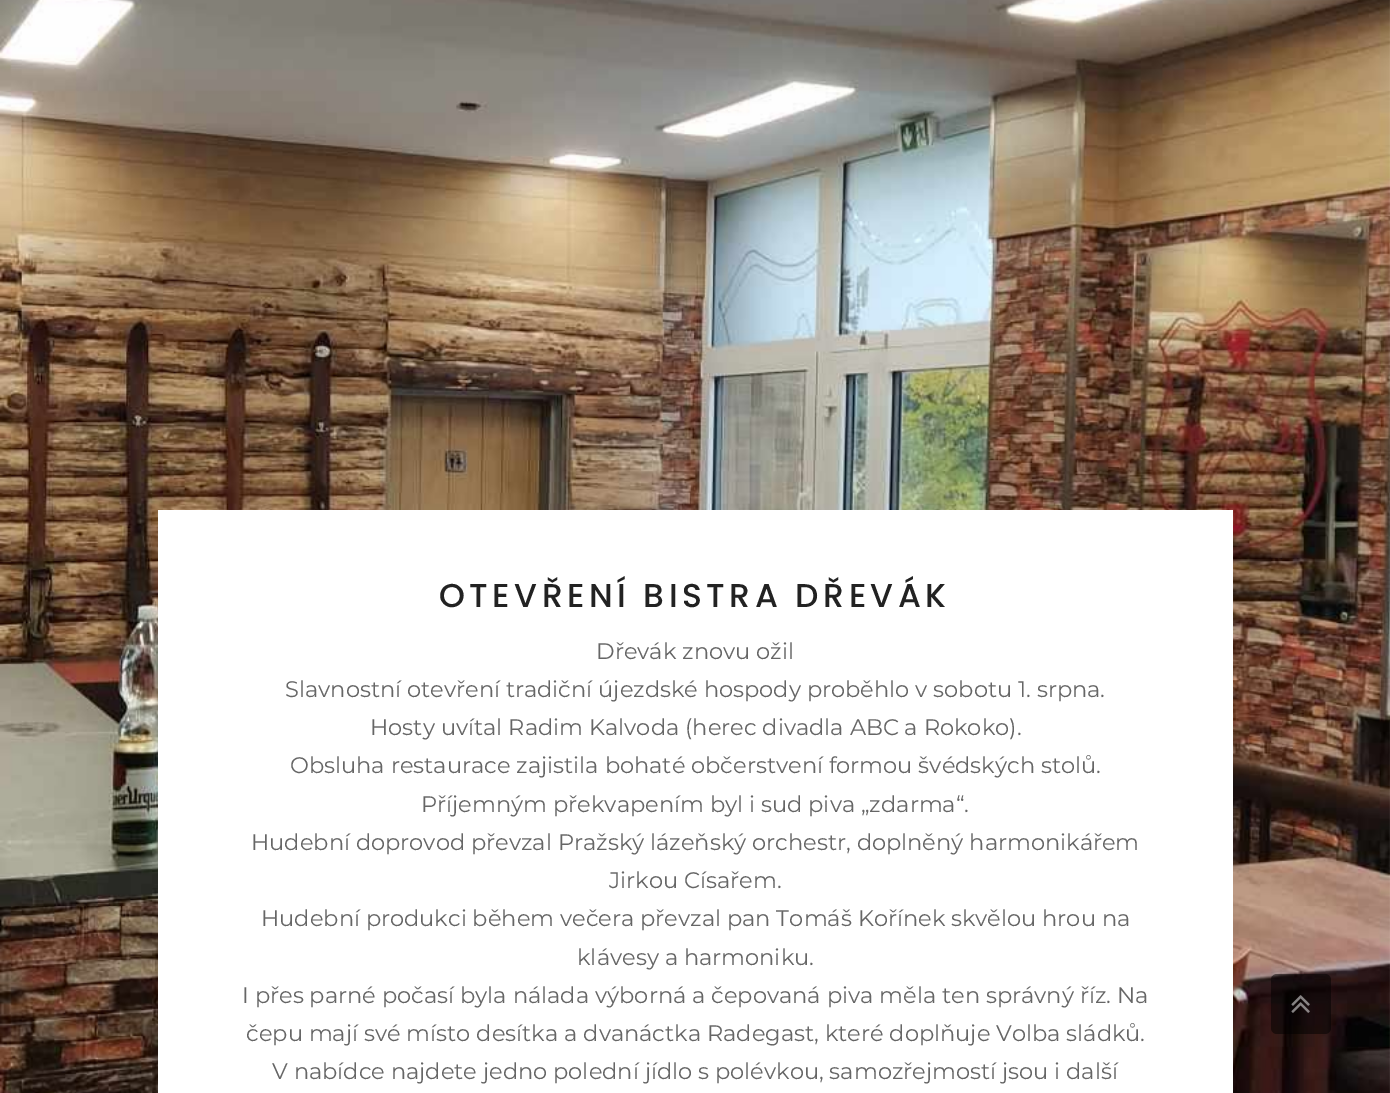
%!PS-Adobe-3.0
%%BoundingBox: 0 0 1390 1093
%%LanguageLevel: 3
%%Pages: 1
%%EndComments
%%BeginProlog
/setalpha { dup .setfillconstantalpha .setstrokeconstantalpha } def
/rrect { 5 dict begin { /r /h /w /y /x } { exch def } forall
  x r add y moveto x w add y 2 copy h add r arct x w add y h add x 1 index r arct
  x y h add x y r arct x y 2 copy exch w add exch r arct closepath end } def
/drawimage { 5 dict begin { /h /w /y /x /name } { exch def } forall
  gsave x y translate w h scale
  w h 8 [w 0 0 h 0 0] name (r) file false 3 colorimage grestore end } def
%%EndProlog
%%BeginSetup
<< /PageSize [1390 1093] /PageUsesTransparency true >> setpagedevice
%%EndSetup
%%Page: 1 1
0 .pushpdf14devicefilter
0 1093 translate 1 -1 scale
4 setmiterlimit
1 setgray
0 0 1390 1093 rectfill
(images/1.raw) 0 0 1390 1093 drawimage
158 510 1075 583 rectfill
0.5 setalpha
0 setgray
1271 974 60 60 6 rrect fill
1 setalpha
(images/2.raw) 1291 995 19 18 drawimage
/Poppins-Medium [33 0 0 -33 0 0] selectfont
0.133 setgray
439 607 moveto 4.5 0 (OTEVŘENÍ BISTRA DŘEVÁK) ashow
/Montserrat-Regular [22.5 0 0 -22.5 0 0] selectfont
0.4 setgray
596 659 moveto (Dřevák znovu ožil) show
285 697 moveto (Slavnostní otevření tradiční újezdské hospody proběhlo v sobotu 1. srpna.) show
370 735 moveto (Hosty uvítal Radim Kalvoda \(herec divadla ABC a Rokoko\).) show
290 773 moveto (Obsluha restaurace zajistila bohaté občerstvení formou švédských stolů.) show
421 812 moveto (Příjemným překvapením byl i sud piva „zdarma“.) show
251 850 moveto (Hudební doprovod převzal Pražský lázeňský orchestr, doplněný harmonikářem) show
609 888 moveto (Jirkou Císařem.) show
261 926 moveto (Hudební produkci během večera převzal pan Tomáš Kořínek skvělou hrou na) show
577 965 moveto (klávesy a harmoniku.) show
242 1003 moveto (I přes parné počasí byla nálada výborná a čepovaná piva měla ten správný říz. Na) show
246 1041 moveto (čepu mají své místo desítka a dvanáctka Radegast, které doplňuje Volba sládků.) show
272 1079 moveto (V nabídce najdete jedno polední jídlo s polévkou, samozřejmostí jsou i další) show
.poppdf14devicefilter showpage
%%EOF
